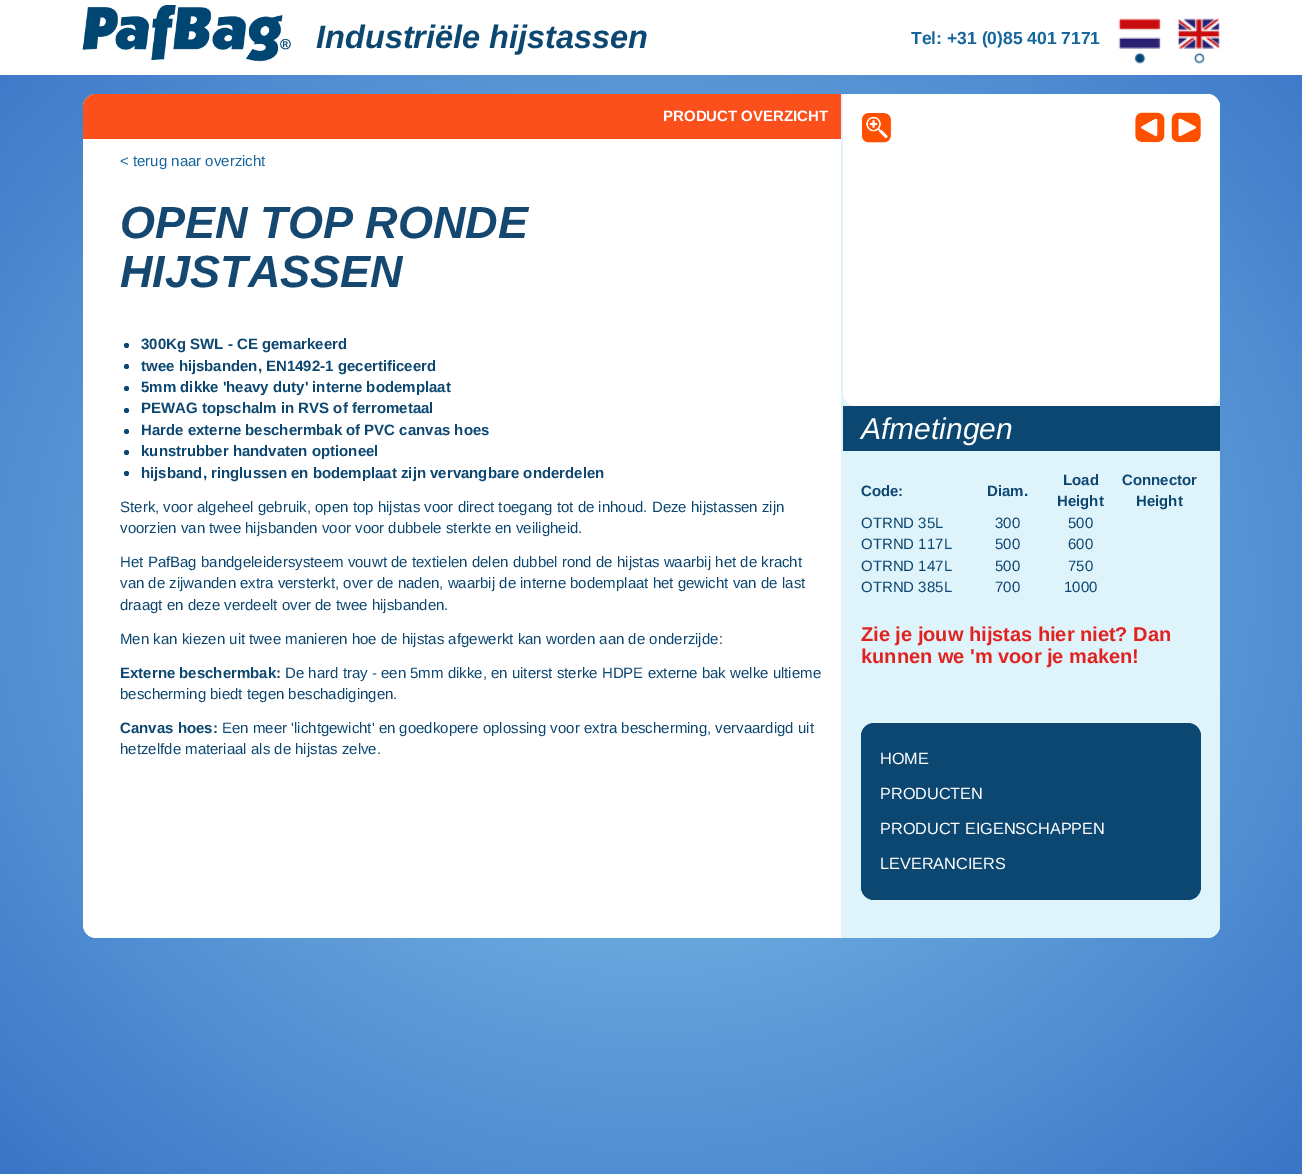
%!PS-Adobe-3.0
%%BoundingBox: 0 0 1302 1174
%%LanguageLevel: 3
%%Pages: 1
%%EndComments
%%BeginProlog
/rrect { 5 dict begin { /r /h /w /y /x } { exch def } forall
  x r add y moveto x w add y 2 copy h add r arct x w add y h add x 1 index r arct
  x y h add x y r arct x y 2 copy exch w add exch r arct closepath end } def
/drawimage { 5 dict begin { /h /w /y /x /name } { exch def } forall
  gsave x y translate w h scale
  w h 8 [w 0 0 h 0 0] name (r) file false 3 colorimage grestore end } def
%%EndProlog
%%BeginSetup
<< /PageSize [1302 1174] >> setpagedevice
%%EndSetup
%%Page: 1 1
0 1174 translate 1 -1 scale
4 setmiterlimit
1 setgray
0 0 1302 1174 rectfill
gsave newpath 0 75 moveto 1302 75 lineto 1302 1174 lineto 0 1174 lineto closepath clip newpath 651 588 translate 921 831 scale
<< /ShadingType 3 /ColorSpace /DeviceRGB /Coords [0 0 0 0 0 1] /Extend [true true] /Function << /FunctionType 3 /Domain [0 1] /Functions [<< /FunctionType 2 /Domain [0 1] /C0 [0.529 0.788 0.929] /C1 [0.529 0.788 0.929] /N 1 >> << /FunctionType 2 /Domain [0 1] /C0 [0.529 0.788 0.929] /C1 [0.227 0.459 0.776] /N 1 >>] /Bounds [0.01] /Encode [0 1 0 1] >> >> shfill grestore
(images/1.raw) 82 5 209 57 drawimage
(images/2.raw) 1118 18 102 46 drawimage
83 94 1137 844 13 rrect fill
0.984 0.314 0.11 setrgbcolor
newpath 96 94 moveto 841 94 lineto 841 139 lineto 83 139 lineto 83 107 lineto 83 100 89 94 96 94 curveto closepath fill
0.047 0.278 0.447 setrgbcolor
newpath 126.5 345.5 2.5 0 360 arc closepath fill
newpath 126.5 366.5 2.5 0 360 arc closepath fill
newpath 126.5 388.5 2.5 0 360 arc closepath fill
newpath 126.5 410.5 2.5 0 360 arc closepath fill
newpath 126.5 431.5 2.5 0 360 arc closepath fill
newpath 126.5 452.5 2.5 0 360 arc closepath fill
newpath 126.5 473.5 2.5 0 360 arc closepath fill
0.875 0.953 0.984 setrgbcolor
newpath 841 94 moveto 1207 94 lineto 1214 94 1220 100 1220 107 curveto 1220 925 lineto 1220 932 1214 938 1207 938 curveto 841 938 lineto closepath fill
1 setgray
newpath 843 94 moveto 1207 94 lineto 1214 94 1220 100 1220 107 curveto 1220 393 lineto 1220 400 1214 406 1207 406 curveto 856 406 lineto 849 406 843 400 843 393 curveto closepath fill
(images/3.raw) 862 113 30 30 drawimage
(images/4.raw) 1135 112 30 31 drawimage
(images/5.raw) 1171 112 30 31 drawimage
0.047 0.278 0.447 setrgbcolor
843 406 377 45 rectfill
861 723 340 177 13 rrect fill
/LiberationSans-BoldItalic [32.5 0 0 -32.5 0 0] selectfont
316 48 moveto (Industriële hijstassen) show
/LiberationSans-Bold [17.5 0 0 -17.5 0 0] selectfont
0.086 0.4 0.62 setrgbcolor
911 44 moveto (Tel: +31 \(0\)85 401 7171) show
/LiberationSans-Bold [15 0 0 -15 0 0] selectfont
1 setgray
663 121 moveto (PRODUCT OVERZICHT) show
/LiberationSans-Regular [15 0 0 -15 0 0] selectfont
0.086 0.4 0.62 setrgbcolor
120 166 moveto (< terug naar overzicht) show
/LiberationSans-BoldItalic [45 0 0 -45 0 0] selectfont
0.082 0.282 0.443 setrgbcolor
120 238 moveto (OPEN TOP RONDE) show
120 287 moveto (HIJSTASSEN) show
/LiberationSans-Bold [15 0 0 -15 0 0] selectfont
0.047 0.278 0.447 setrgbcolor
141 349 moveto (300Kg SWL - CE gemarkeerd) show
141 371 moveto (twee hijsbanden, EN1492-1 gecertificeerd) show
141 392 moveto (5mm dikke 'heavy duty' interne bodemplaat) show
141 413 moveto (PEWAG topschalm in RVS of ferrometaal) show
141 435 moveto (Harde externe beschermbak of PVC canvas hoes) show
141 456 moveto (kunstrubber handvaten optioneel) show
141 478 moveto (hijsband, ringlussen en bodemplaat zijn vervangbare onderdelen) show
/LiberationSans-Regular [15 0 0 -15 0 0] selectfont
120 512 moveto (Sterk, voor algeheel gebruik, open top hijstas voor direct toegang tot de inhoud. Deze hijstassen zijn) show
120 533 moveto (voorzien van twee hijsbanden voor voor dubbele sterkte en veiligheid.) show
120 567 moveto (Het PafBag bandgeleidersysteem vouwt de textielen delen dubbel rond de hijstas waarbij het de kracht) show
120 588 moveto (van de zijwanden extra versterkt, over de naden, waarbij de interne bodemplaat het gewicht van de last) show
120 610 moveto (draagt en deze verdeelt over de twee hijsbanden.) show
120 644 moveto (Men kan kiezen uit twee manieren hoe de hijstas afgewerkt kan worden aan de onderzijde:) show
/LiberationSans-Bold [15 0 0 -15 0 0] selectfont
120 678 moveto (Externe beschermbak:) show
/LiberationSans-Regular [15 0 0 -15 0 0] selectfont
285 678 moveto (De hard tray - een 5mm dikke, en uiterst sterke HDPE externe bak welke ultieme) show
120 699 moveto (bescherming biedt tegen beschadigingen.) show
/LiberationSans-Bold [15 0 0 -15 0 0] selectfont
120 733 moveto (Canvas hoes:) show
/LiberationSans-Regular [15 0 0 -15 0 0] selectfont
222 733 moveto (Een meer 'lichtgewicht' en goedkopere oplossing voor extra bescherming, vervaardigd uit) show
120 754 moveto (hetzelfde materiaal als de hijstas zelve.) show
/LiberationSans-Italic [30 0 0 -30 0 0] selectfont
1 setgray
861 439 moveto (Afmetingen) show
/LiberationSans-Bold [15 0 0 -15 0 0] selectfont
0.047 0.278 0.447 setrgbcolor
861 496 moveto (Code:) show
987 496 moveto (Diam.) show
1063 485 moveto (Load) show
1057 506 moveto (Height) show
1122 485 moveto (Connector) show
1136 506 moveto (Height) show
/LiberationSans-Regular [15 0 0 -15 0 0] selectfont
861 528 moveto (OTRND 35L) show
995 528 moveto (300) show
1068 528 moveto (500) show
861 549 moveto (OTRND 117L) show
995 549 moveto (500) show
1068 549 moveto (600) show
861 571 moveto (OTRND 147L) show
995 571 moveto (500) show
1068 571 moveto (750) show
861 592 moveto (OTRND 385L) show
995 592 moveto (700) show
1064 592 moveto (1000) show
/LiberationSans-Bold [20 0 0 -20 0 0] selectfont
0.878 0.137 0.125 setrgbcolor
861 641 moveto (Zie je jouw hijstas hier niet? Dan) show
861 663 moveto (kunnen we 'm voor je maken!) show
/LiberationSans-Regular [16.25 0 0 -16.25 0 0] selectfont
1 setgray
880 764 moveto (HOME) show
880 799 moveto (PRODUCTEN) show
880 834 moveto (PRODUCT EIGENSCHAPPEN) show
880 869 moveto (LEVERANCIERS) show
showpage
%%EOF
